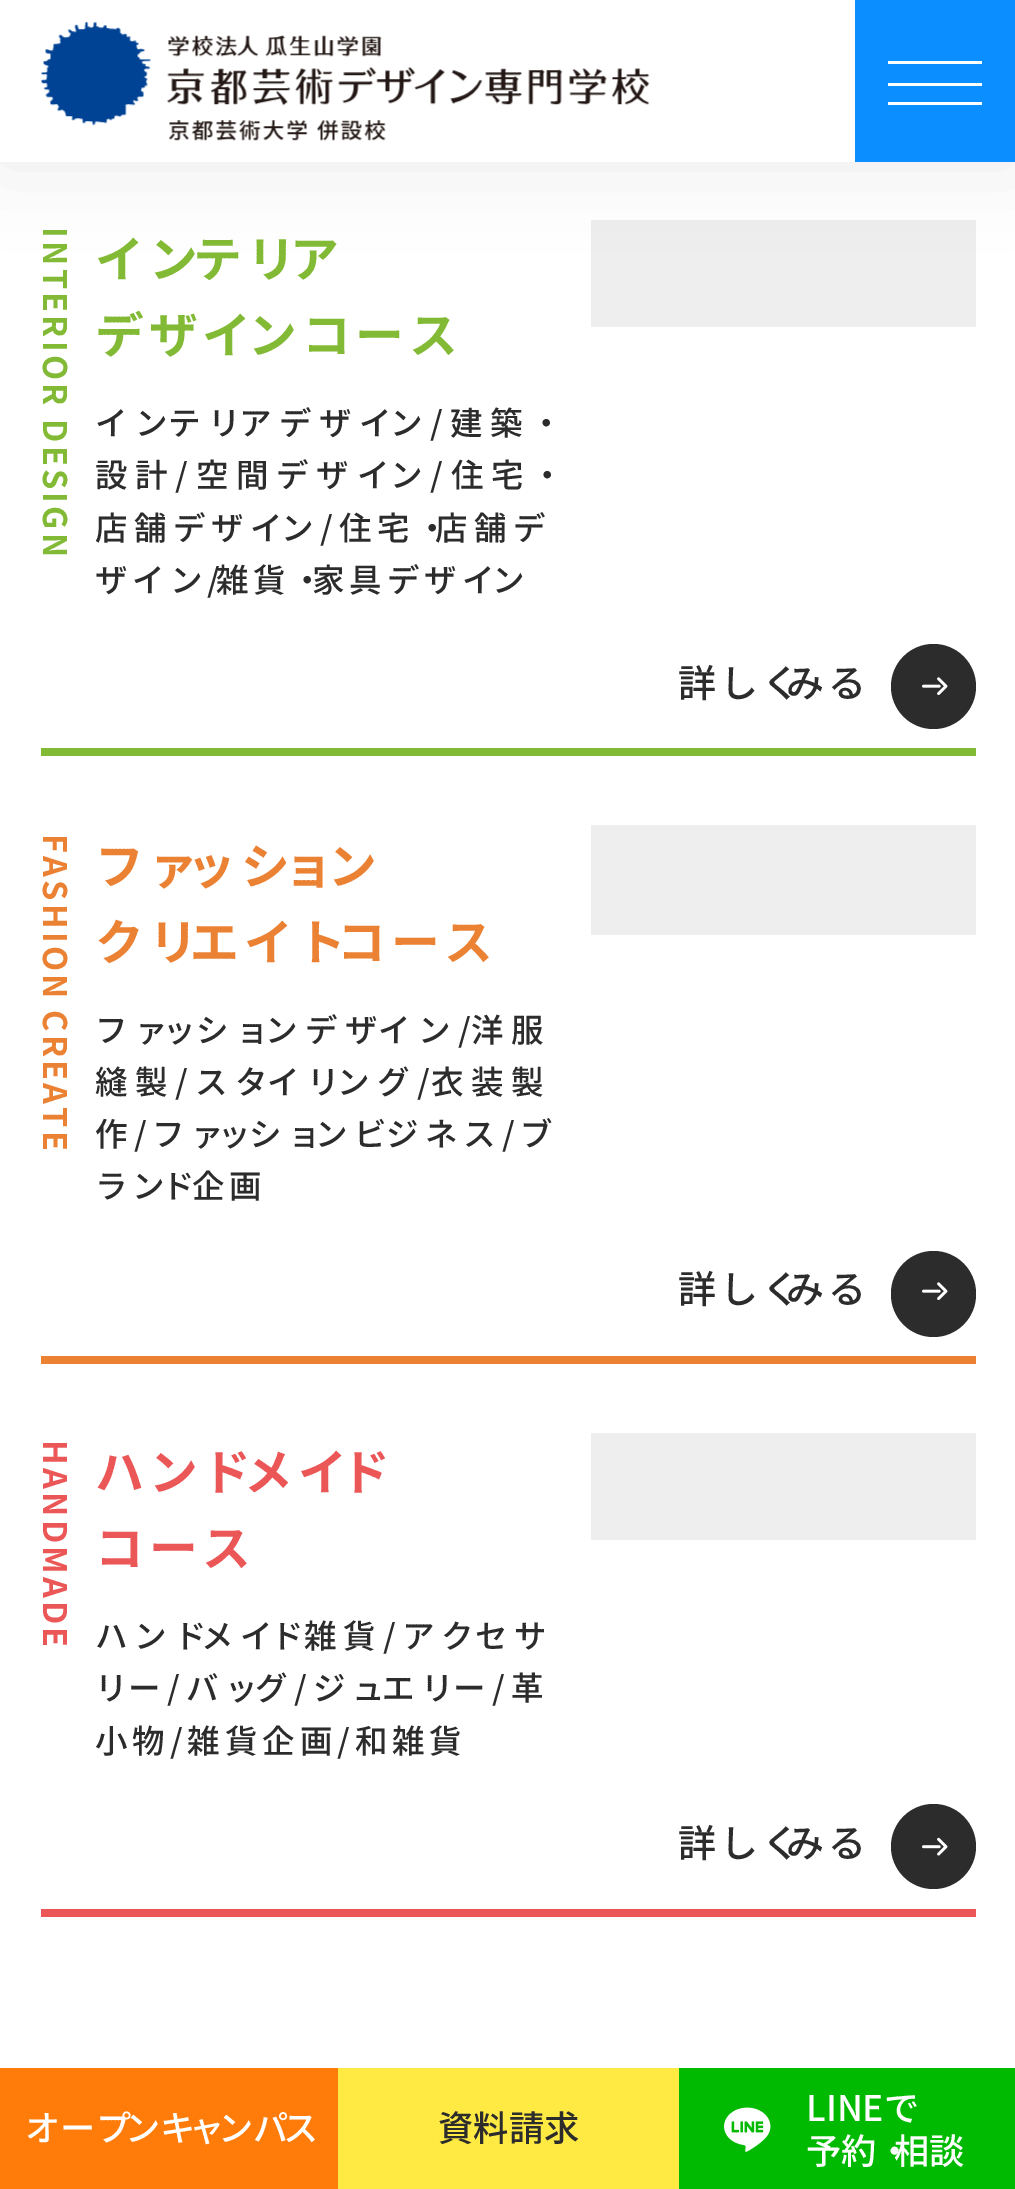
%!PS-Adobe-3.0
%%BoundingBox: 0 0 1015 2189
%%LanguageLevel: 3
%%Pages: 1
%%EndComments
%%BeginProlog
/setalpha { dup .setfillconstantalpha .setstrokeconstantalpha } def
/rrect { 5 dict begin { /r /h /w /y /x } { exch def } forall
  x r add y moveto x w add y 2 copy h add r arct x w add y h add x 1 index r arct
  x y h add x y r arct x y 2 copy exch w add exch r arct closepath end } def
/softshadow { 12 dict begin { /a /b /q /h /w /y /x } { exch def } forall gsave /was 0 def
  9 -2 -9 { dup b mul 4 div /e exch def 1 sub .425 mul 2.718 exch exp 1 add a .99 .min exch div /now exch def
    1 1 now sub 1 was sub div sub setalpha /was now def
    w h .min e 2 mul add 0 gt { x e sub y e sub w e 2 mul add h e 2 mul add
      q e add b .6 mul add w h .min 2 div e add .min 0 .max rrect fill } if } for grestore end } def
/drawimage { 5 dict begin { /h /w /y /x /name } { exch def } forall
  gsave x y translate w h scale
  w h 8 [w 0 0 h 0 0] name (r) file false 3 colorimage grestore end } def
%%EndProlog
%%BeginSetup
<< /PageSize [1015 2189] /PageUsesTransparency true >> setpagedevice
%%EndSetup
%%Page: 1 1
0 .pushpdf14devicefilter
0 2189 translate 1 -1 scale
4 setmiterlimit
1 setgray
0 0 1015 2189 rectfill
0.933 setgray
591 220 385 107 rectfill
0.173 setgray
0 0 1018 162 0 40.5 0.1 softshadow
1 setgray
0 0 855 162 rectfill
(images/1.raw) 41 22 609 119 drawimage
0.043 0.557 1 setrgbcolor
855 0 160 162 rectfill
1 setgray
888 61 94 3 rectfill
888 83 94 3 rectfill
888 102 94 3 rectfill
0.173 setgray
newpath 933.5 686.5 42.5 0 360 arc closepath fill
(images/2.raw) 922 677 26 18 drawimage
0.51 0.729 0.208 setrgbcolor
41 748 935 8 rectfill
0.933 setgray
591 825 385 110 rectfill
0.173 setgray
891 1251 85 86 42.5 rrect fill
(images/2.raw) 922 1282 26 18 drawimage
0.922 0.506 0.2 setrgbcolor
41 1356 935 8 rectfill
0.933 setgray
591 1433 385 107 rectfill
0.173 setgray
newpath 933.5 1846.5 42.5 0 360 arc closepath fill
(images/3.raw) 922 1837 26 19 drawimage
0.922 0.337 0.337 setrgbcolor
41 1909 935 8 rectfill
1 0.486 0.043 setrgbcolor
0 2068 338 121 rectfill
1 0.914 0.263 setrgbcolor
338 2068 341 121 rectfill
0 0.729 0.004 setrgbcolor
679 2068 336 121 rectfill
(images/4.raw) 724 2107 47 45 drawimage
/NotoSansJP-Bold [32.5 0 0 -32.5 0 0] selectfont
0.51 0.729 0.208 setrgbcolor
gsave 43 227 translate 90 rotate 0 0 moveto 3.25 0 (INTERIOR DESIGN) ashow grestore
/NotoSansJP-Bold [48.75 0 0 -48.75 0 0] selectfont
95 277 moveto 4.9 0 (イン) ashow
193 277 moveto 4.9 0 (テリ) ashow
290 277 moveto 4.9 0 (ア) ashow
95 353 moveto 4.9 0 (デザイ) ashow
248 353 moveto 4.9 0 (ンコース) ashow
/NotoSansJP-Medium [32.5 0 0 -32.5 0 0] selectfont
0.173 setgray
95 435 moveto 7.5 0 (イン) ashow
168 435 moveto 7.5 0 (テリ) ashow
239 435 moveto 7.5 0 (アデザイ) ashow
390 435 moveto 7.5 0 (ン/建築・) ashow
95 487 moveto 7.7 0 (設計/空間デザイ) ashow
390 487 moveto 7.7 0 (ン/住宅・) ashow
95 540 moveto 6.25 0 (店舗デザイ) ashow
281 540 moveto 6.25 0 (ン/住宅・) ashow
435 540 moveto 6.25 0 (店舗デ) ashow
95 592 moveto 4.9 0 (ザイン/) ashow
216 592 moveto 4.9 0 (雑貨・) ashow
312 592 moveto 4.9 0 (家具デザイ) ashow
492 592 moveto 4.9 0 (ン) ashow
/NotoSansJP-Medium [38 0 0 -38 0 0] selectfont
678 697 moveto 3.75 0 (詳しく) ashow
786 697 moveto 3.75 0 (みる) ashow
/NotoSansJP-Bold [32.5 0 0 -32.5 0 0] selectfont
0.922 0.506 0.2 setrgbcolor
gsave 43 834 translate 90 rotate 0 0 moveto -2 0 32 3.25 0 (FASHION CREATE) awidthshow grestore
/NotoSansJP-Bold [48.75 0 0 -48.75 0 0] selectfont
95 884 moveto 4.9 0 (ファ) ashow
187 884 moveto 4.9 0 (ッシ) ashow
284 884 moveto 4.9 0 (ョ) ashow
328 884 moveto 4.9 0 (ン) ashow
95 960 moveto 4.9 0 (クリ) ashow
190 960 moveto 4.9 0 (エイト) ashow
337 960 moveto 4.9 0 (コース) ashow
/NotoSansJP-Medium [32.5 0 0 -32.5 0 0] selectfont
0.173 setgray
95 1042 moveto 7.4 0 (ファ) ashow
163 1042 moveto 7.4 0 (ッ) ashow
196 1042 moveto 7.4 0 (ショ) ashow
265 1042 moveto 7.4 0 (ンデザ) ashow
378 1042 moveto 7.4 0 (イン/) ashow
471 1042 moveto 7.4 0 (洋服) ashow
95 1094 moveto 7.4 0 (縫製/スタ) ashow
267 1094 moveto 7.4 0 (イリ) ashow
337 1094 moveto 7.4 0 (ング/) ashow
431 1094 moveto 7.4 0 (衣装製) ashow
95 1146 moveto 6 0 (作/ファ) ashow
218 1146 moveto 6 0 (ッ) ashow
249 1146 moveto 6 0 (ショ) ashow
315 1146 moveto 6 0 (ンビ) ashow
386 1146 moveto 6 0 (ジネス/ブ) ashow
95 1198 moveto 4.9 0 (ラン) ashow
162 1198 moveto 4.9 0 (ド) ashow
192 1198 moveto 4.9 0 (企画) ashow
/NotoSansJP-Medium [38 0 0 -38 0 0] selectfont
678 1303 moveto 3.75 0 (詳しく) ashow
786 1303 moveto 3.75 0 (みる) ashow
/NotoSansJP-Bold [32.5 0 0 -32.5 0 0] selectfont
0.922 0.337 0.337 setrgbcolor
gsave 43 1440 translate 90 rotate 0 0 moveto 3.25 0 (HANDMADE) ashow grestore
/NotoSansJP-Bold [48.75 0 0 -48.75 0 0] selectfont
95 1490 moveto 4.9 0 (ハンド) ashow
244 1490 moveto 4.9 0 (メイ) ashow
341 1490 moveto 4.9 0 (ド) ashow
95 1566 moveto 4.9 0 (コース) ashow
/NotoSansJP-Medium [32.5 0 0 -32.5 0 0] selectfont
0.173 setgray
95 1648 moveto 6.75 0 (ハンド) ashow
201 1648 moveto 6.75 0 (メイ) ashow
271 1648 moveto 6.75 0 (ド) ashow
304 1648 moveto 6.75 0 (雑貨/アク) ashow
475 1648 moveto 6.75 0 (セサ) ashow
95 1700 moveto 6.5 0 (リ) ashow
128 1700 moveto 6.5 0 (ー/バッ) ashow
255 1700 moveto 6.5 0 (グ/ジュ) ashow
382 1700 moveto 6.5 0 (エリ) ashow
453 1700 moveto 6.5 0 (ー/革) ashow
95 1753 moveto 4.9 0 (小物/雑貨企画/和雑貨) ashow
/NotoSansJP-Medium [38 0 0 -38 0 0] selectfont
678 1857 moveto 3.75 0 (詳しく) ashow
786 1857 moveto 3.75 0 (みる) ashow
/NotoSansJP-Medium [35.25 0 0 -35.25 0 0] selectfont
1 setgray
25 2141 moveto (オープ) show
125 2141 moveto (ンキ) show
189 2141 moveto (ャ) show
218 2141 moveto (ンパ) show
283 2141 moveto (ス) show
0.173 setgray
438 2141 moveto (資料請求) show
1 setgray
806 2121 moveto (LINEで) show
806 2164 moveto (予約・) show
894 2164 moveto (相談) show
.poppdf14devicefilter showpage
%%EOF
